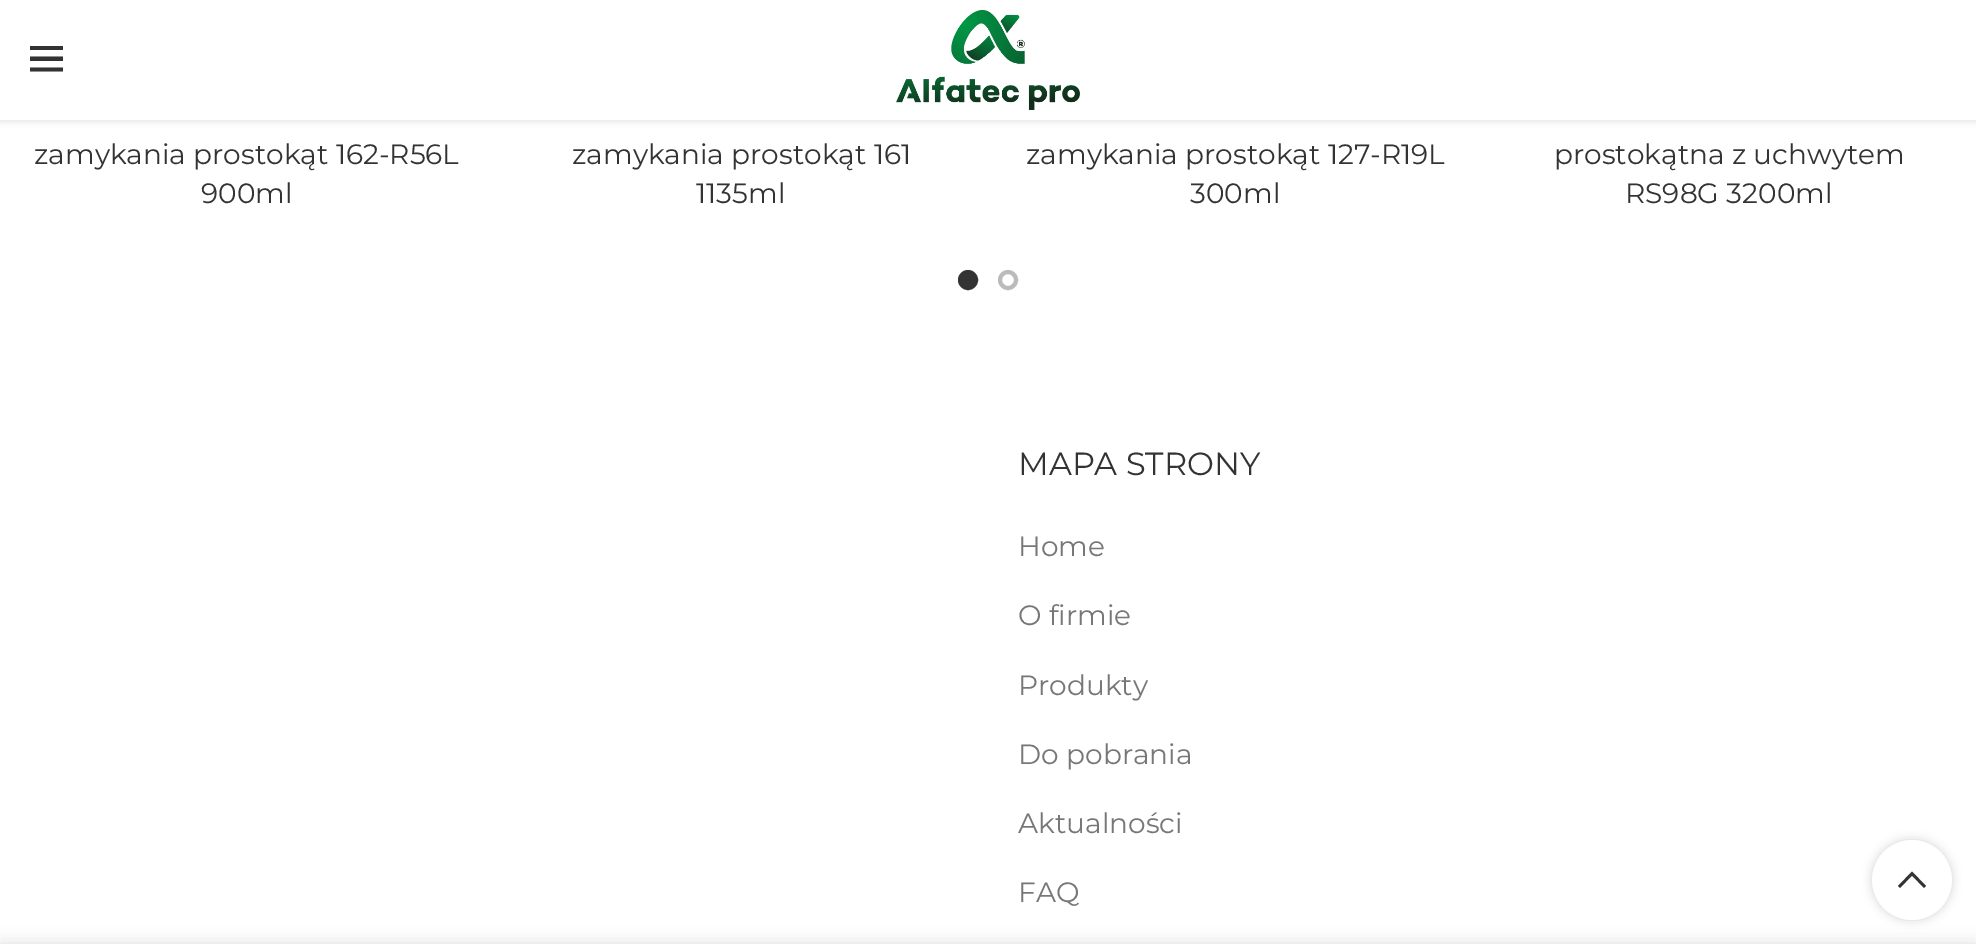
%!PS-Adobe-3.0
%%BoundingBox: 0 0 1976 944
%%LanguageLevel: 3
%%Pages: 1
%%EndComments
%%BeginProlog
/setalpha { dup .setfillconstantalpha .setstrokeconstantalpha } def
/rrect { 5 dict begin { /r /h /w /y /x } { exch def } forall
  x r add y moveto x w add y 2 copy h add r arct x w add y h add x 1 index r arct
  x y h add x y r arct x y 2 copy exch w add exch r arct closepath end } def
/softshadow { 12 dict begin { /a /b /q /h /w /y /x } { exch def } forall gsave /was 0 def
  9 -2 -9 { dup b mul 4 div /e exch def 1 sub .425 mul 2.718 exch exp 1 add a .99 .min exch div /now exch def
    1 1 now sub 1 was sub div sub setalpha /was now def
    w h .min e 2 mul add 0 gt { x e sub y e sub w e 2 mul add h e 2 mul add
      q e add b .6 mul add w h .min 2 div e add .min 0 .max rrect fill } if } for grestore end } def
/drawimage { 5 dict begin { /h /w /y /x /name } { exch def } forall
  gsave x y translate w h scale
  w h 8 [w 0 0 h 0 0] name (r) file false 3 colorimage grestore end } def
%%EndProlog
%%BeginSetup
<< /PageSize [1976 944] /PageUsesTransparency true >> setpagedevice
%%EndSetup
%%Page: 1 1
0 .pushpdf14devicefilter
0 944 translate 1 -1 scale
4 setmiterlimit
1 setgray
0 0 1976 944 rectfill
0 setgray
0 2 1976 120 0 3 0.1 softshadow
1 setgray
0 0 1976 120 rectfill
0.2 setgray
newpath 30 46 moveto 63 46 lineto 63 50 lineto 30 50 lineto closepath 30 56.5 moveto 63 56.5 lineto 63 61 lineto 30 61 lineto closepath 30 67.5 moveto 63 67.5 lineto 63 71.5 lineto 30 71.5 lineto closepath fill
(images/1.raw) 896 10 184 100 drawimage
newpath 968 280 8 0 360 arc closepath gsave fill grestore
4 setlinewidth
stroke
0.733 setgray
newpath 1008 280 8 0 360 arc closepath stroke
gsave
newpath 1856 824 moveto 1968 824 lineto 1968 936 lineto 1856 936 lineto closepath 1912 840 moveto 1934 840 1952 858 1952 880 curveto 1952 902 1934 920 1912 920 curveto 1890 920 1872 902 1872 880 curveto 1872 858 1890 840 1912 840 curveto closepath eoclip newpath
0 setgray
1872 840 80 80 40 5 0.17 softshadow
grestore
0.9 setalpha
1 setgray
newpath 1912 880 40 0 360 arc closepath fill
1 setalpha
0.2 setgray
newpath 1912 871.5 moveto 1926 886 lineto 1924 888 lineto 1912 875.5 lineto 1900 888 lineto 1898 886 lineto closepath fill
0 setgray
0 944 1976 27 0 9 0.14 softshadow
/Montserrat-Regular [28 0 0 -28 0 0] selectfont
0.2 setgray
34 164 moveto (zamykania prostokąt 162-R56L) show
201 203 moveto (900ml) show
572 164 moveto (zamykania prostokąt 161) show
696 203 moveto (1135ml) show
1026 164 moveto (zamykania prostokąt 127-R19L) show
1190 203 moveto (300ml) show
1554 164 moveto (prostokątna z uchwytem) show
1625 203 moveto (RS98G 3200ml) show
/Montserrat-Regular [32 0 0 -32 0 0] selectfont
1018 475 moveto (MAPA STRONY) show
/Montserrat-Regular [28 0 0 -28 0 0] selectfont
0.467 setgray
1018 556 moveto (Home) show
1018 625 moveto (O firmie) show
1018 695 moveto (Produkty) show
1018 764 moveto (Do pobrania) show
1018 833 moveto (Aktualności) show
1018 902 moveto (FAQ) show
.poppdf14devicefilter showpage
%%EOF
